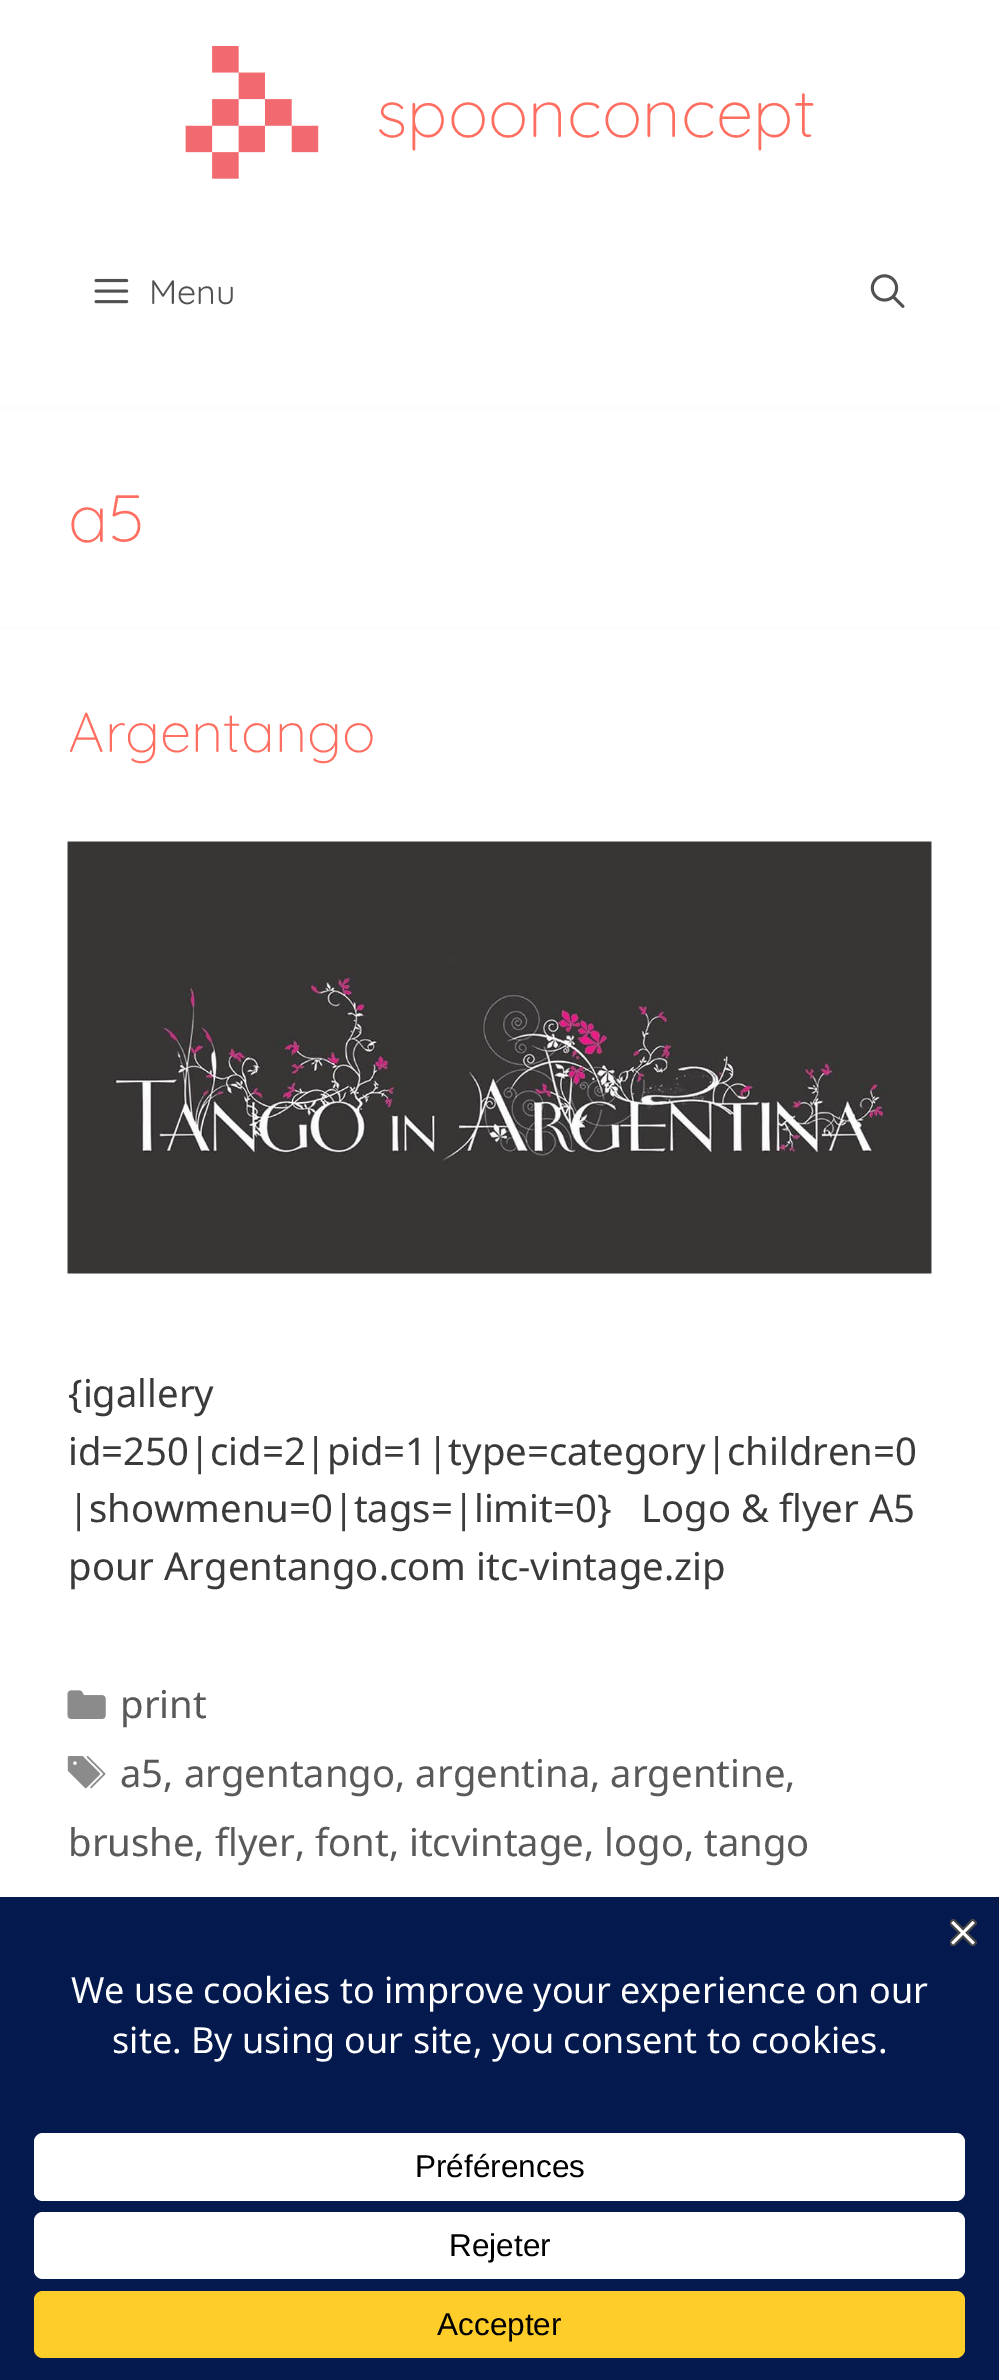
%!PS-Adobe-3.0
%%BoundingBox: 0 0 999 2380
%%LanguageLevel: 3
%%Pages: 1
%%EndComments
%%BeginProlog
/rrect { 5 dict begin { /r /h /w /y /x } { exch def } forall
  x r add y moveto x w add y 2 copy h add r arct x w add y h add x 1 index r arct
  x y h add x y r arct x y 2 copy exch w add exch r arct closepath end } def
/drawimage { 5 dict begin { /h /w /y /x /name } { exch def } forall
  gsave x y translate w h scale
  w h 8 [w 0 0 h 0 0] name (r) file false 3 colorimage grestore end } def
%%EndProlog
%%BeginSetup
<< /PageSize [999 2380] >> setpagedevice
%%EndSetup
%%Page: 1 1
0 2380 translate 1 -1 scale
4 setmiterlimit
1 0.988 0.988 setrgbcolor
0 0 999 2380 rectfill
1 setgray
0 0 999 405 rectfill
(images/1.raw) 185 46 134 133 drawimage
(images/2.raw) 94 278 35 26 drawimage
(images/3.raw) 870 274 35 34 drawimage
0 410 999 216 rectfill
0 630 999 1267 rectfill
(images/4.raw) 67 841 865 433 drawimage
(images/5.raw) 67 1690 39 29 drawimage
(images/6.raw) 67 1756 39 33 drawimage
0.016 0.098 0.306 setrgbcolor
0 1897 999 483 rectfill
(images/7.raw) 950 1919 27 27 drawimage
1 setgray
34 2133 931 68 9 rrect fill
34 2212 931 67 9 rrect fill
1 0.804 0.165 setrgbcolor
34 2291 931 67 9 rrect fill
/Quicksand-Light [67.5 0 0 -67.5 0 0] selectfont
1 0.435 0.38 setrgbcolor
376 137 moveto (spoonconcept) show
/Quicksand-Regular [34 0 0 -34 0 0] selectfont
0.318 setgray
149 304 moveto (Menu) show
/Quicksand-Light [67.5 0 0 -67.5 0 0] selectfont
1 0.435 0.38 setrgbcolor
68 542 moveto (a5) show
/Quicksand-Light [56.25 0 0 -56.25 0 0] selectfont
68 752 moveto (Argentango) show
/NotoSans-Regular [38.25 0 0 -38.25 0 0] selectfont
0.227 setgray
68 1407 moveto ({igallery) show
68 1465 moveto (id=250|cid=2|pid=1|type=category|children=0) show
68 1522 moveto (|showmenu=0|tags=|limit=0}   Logo & flyer A5) show
68 1580 moveto (pour Argentango.com itc-vintage.zip) show
0.349 setgray
120 1718 moveto (print) show
120 1787 moveto (a5, argentango, argentina, argentine,) show
68 1856 moveto (brushe, flyer, font, itcvintage, logo, tango) show
/NotoSans-Regular [36 0 0 -36 0 0] selectfont
1 setgray
71 2003 moveto (We use cookies to improve your experience on our) show
112 2053 moveto (site. By using our site, you consent to cookies.) show
/LiberationSans-Regular [31.5 0 0 -31.5 0 0] selectfont
0 setgray
415 2177 moveto (Préférences) show
449 2256 moveto (Rejeter) show
437 2335 moveto (Accepter) show
showpage
%%EOF
